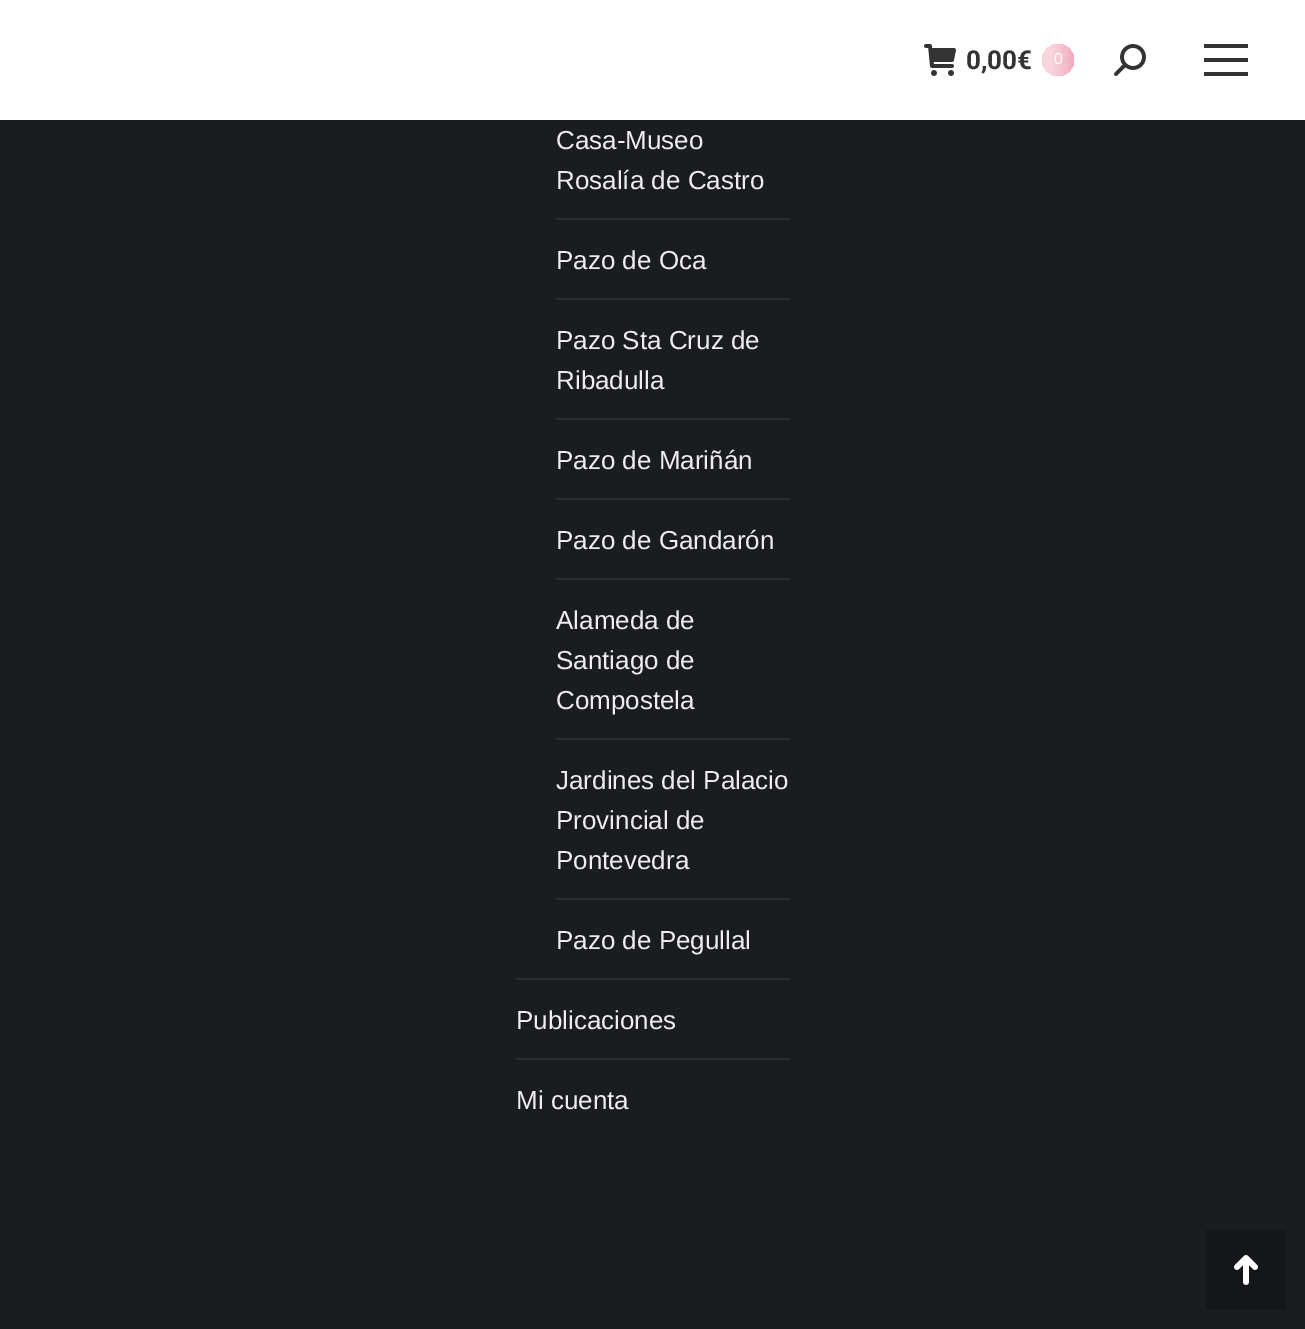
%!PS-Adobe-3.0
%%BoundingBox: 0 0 1305 1329
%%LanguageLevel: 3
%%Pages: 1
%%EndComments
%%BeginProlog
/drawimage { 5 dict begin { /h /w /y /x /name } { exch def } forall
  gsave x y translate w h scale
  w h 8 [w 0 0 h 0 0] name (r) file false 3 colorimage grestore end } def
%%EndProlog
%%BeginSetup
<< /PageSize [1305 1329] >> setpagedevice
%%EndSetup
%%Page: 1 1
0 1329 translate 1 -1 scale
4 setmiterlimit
0.102 0.11 0.125 setrgbcolor
0 0 1305 1329 rectfill
1 setgray
0 0 1305 120 rectfill
(images/1.raw) 924 44 32 32 drawimage
gsave newpath 1058 60 16 0 360 arc closepath clip newpath
<< /ShadingType 2 /ColorSpace /DeviceRGB /Coords [1042 60 1074 60] /Extend [true true] /Function << /FunctionType 3 /Domain [0 1] /Functions [<< /FunctionType 2 /Domain [0 1] /C0 [0.976 0.839 0.867] /C1 [0.976 0.839 0.867] /N 1 >> << /FunctionType 2 /Domain [0 1] /C0 [0.976 0.839 0.867] /C1 [0.953 0.667 0.741] /N 1 >>] /Bounds [0.3] /Encode [0 1 0 1] >> >> shfill grestore
(images/2.raw) 1114 44 32 32 drawimage
0.2 setgray
1204 44 44 4 rectfill
1204 58 44 4 rectfill
1204 72 44 4 rectfill
0.169 0.176 0.192 setrgbcolor
556 218 234 2 rectfill
556 298 234 2 rectfill
556 418 234 2 rectfill
556 498 234 2 rectfill
556 578 234 2 rectfill
556 738 234 2 rectfill
556 898 234 2 rectfill
516 978 274 2 rectfill
516 1058 274 2 rectfill
0.082 0.086 0.102 setrgbcolor
1206 1230 80 80 rectfill
(images/3.raw) 1234 1255 24 30 drawimage
/Roboto-Bold [26 0 0 -26 0 0] selectfont
0.2 setgray
966 69 moveto (0,00€) show
/LiberationSans-Regular [16 0 0 -16 0 0] selectfont
1 setgray
1054 64 moveto (0) show
/LiberationSans-Regular [26 0 0 -26 0 0] selectfont
0.933 setgray
556 149 moveto (Casa-Museo) show
556 189 moveto (Rosalía de Castro) show
556 269 moveto (Pazo de Oca) show
556 349 moveto (Pazo Sta Cruz de) show
556 389 moveto (Ribadulla) show
556 469 moveto (Pazo de Mariñán) show
556 549 moveto (Pazo de Gandarón) show
556 629 moveto (Alameda de) show
556 669 moveto (Santiago de) show
556 709 moveto (Compostela) show
556 789 moveto (Jardines del Palacio) show
556 829 moveto (Provincial de) show
556 869 moveto (Pontevedra) show
556 949 moveto (Pazo de Pegullal) show
516 1029 moveto (Publicaciones) show
516 1109 moveto (Mi cuenta) show
showpage
%%EOF
